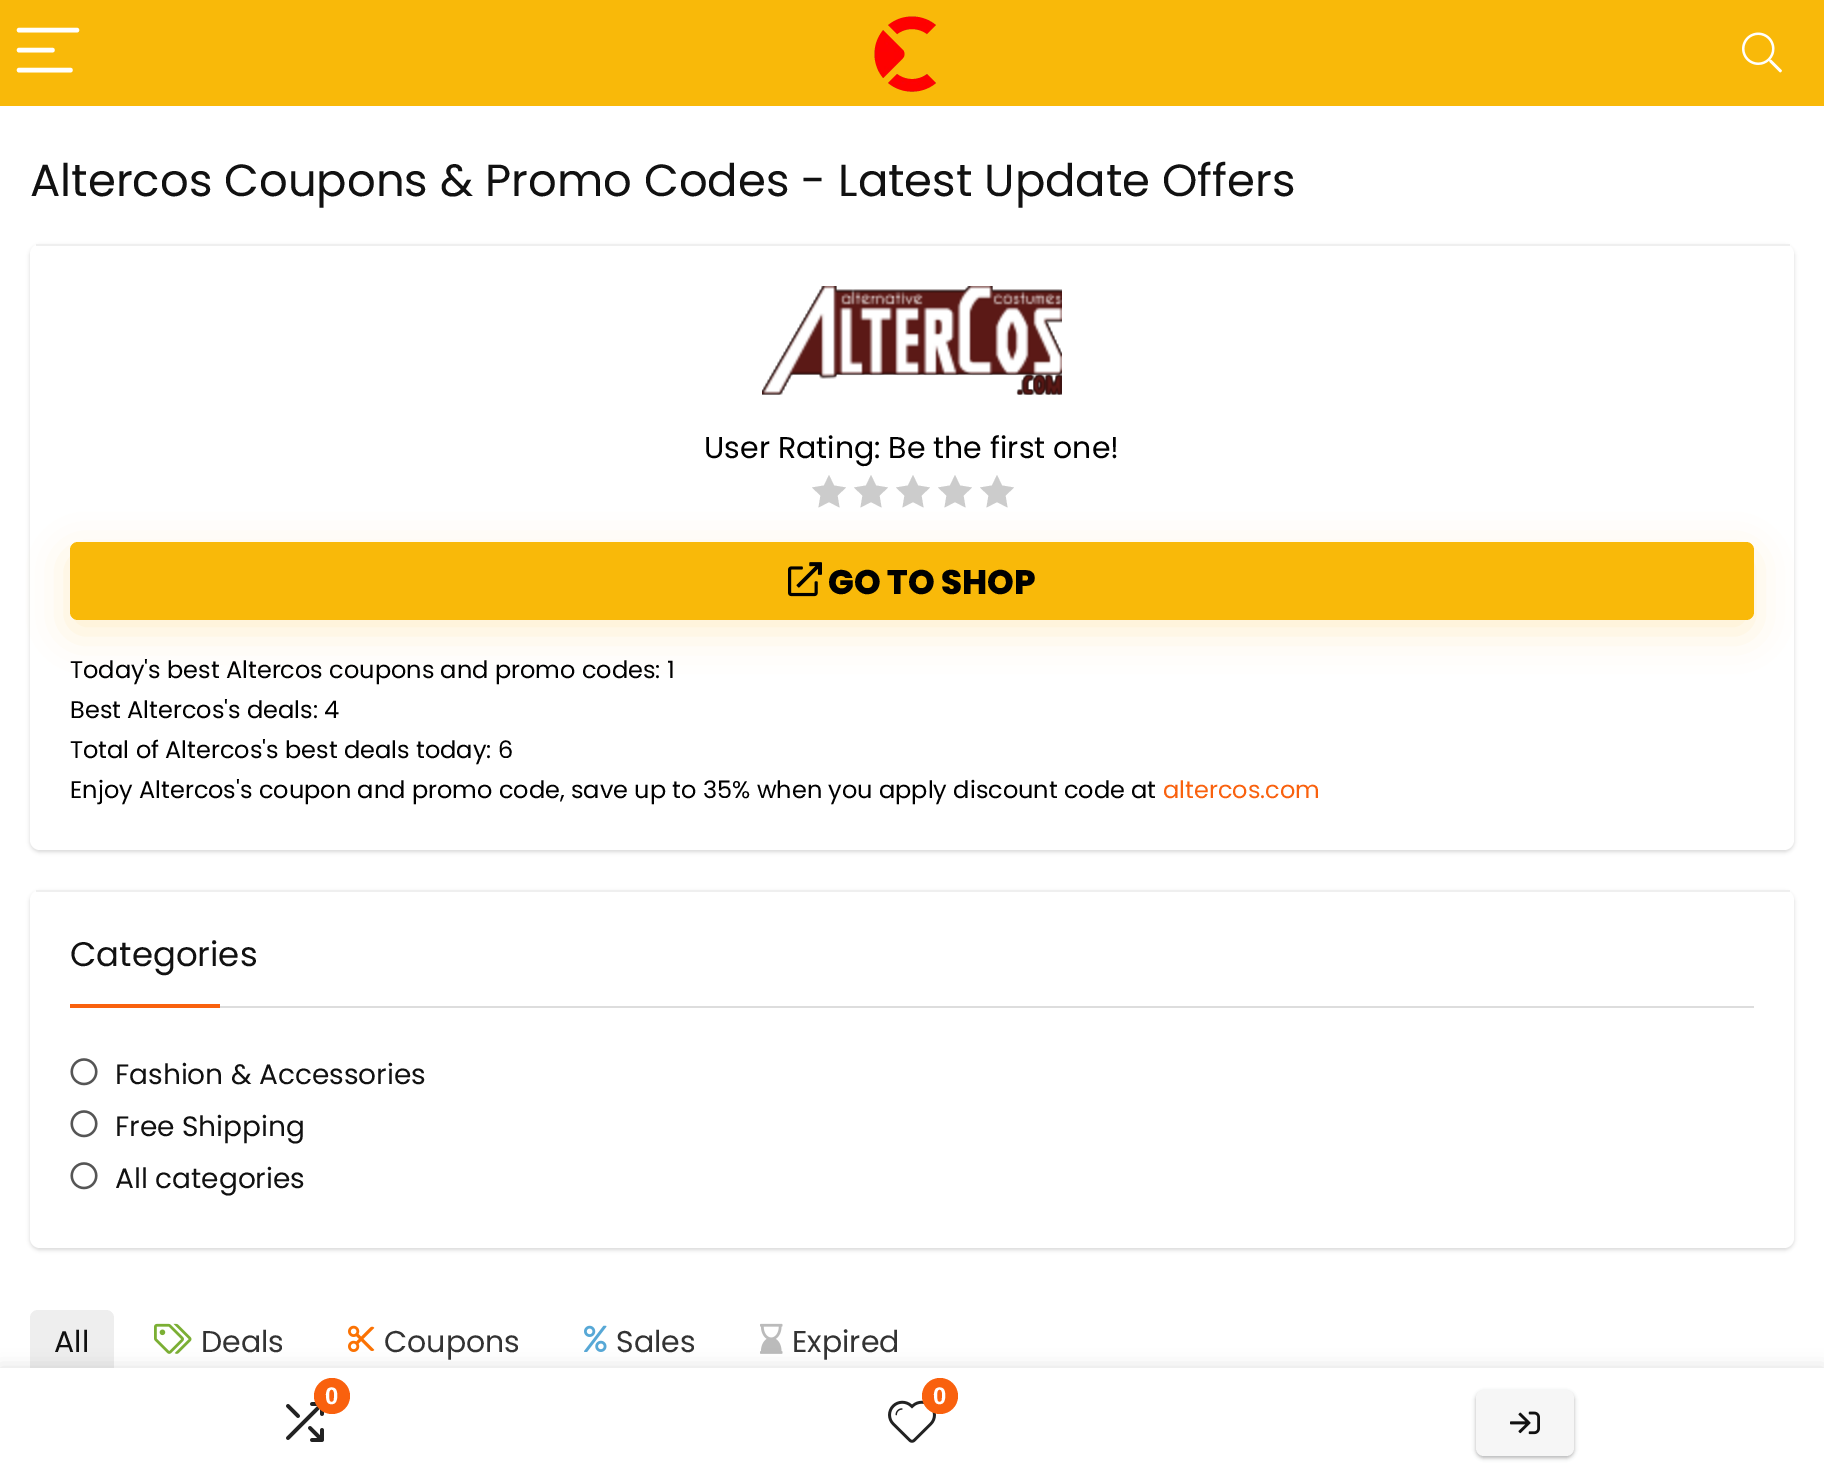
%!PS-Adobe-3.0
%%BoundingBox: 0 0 1824 1477
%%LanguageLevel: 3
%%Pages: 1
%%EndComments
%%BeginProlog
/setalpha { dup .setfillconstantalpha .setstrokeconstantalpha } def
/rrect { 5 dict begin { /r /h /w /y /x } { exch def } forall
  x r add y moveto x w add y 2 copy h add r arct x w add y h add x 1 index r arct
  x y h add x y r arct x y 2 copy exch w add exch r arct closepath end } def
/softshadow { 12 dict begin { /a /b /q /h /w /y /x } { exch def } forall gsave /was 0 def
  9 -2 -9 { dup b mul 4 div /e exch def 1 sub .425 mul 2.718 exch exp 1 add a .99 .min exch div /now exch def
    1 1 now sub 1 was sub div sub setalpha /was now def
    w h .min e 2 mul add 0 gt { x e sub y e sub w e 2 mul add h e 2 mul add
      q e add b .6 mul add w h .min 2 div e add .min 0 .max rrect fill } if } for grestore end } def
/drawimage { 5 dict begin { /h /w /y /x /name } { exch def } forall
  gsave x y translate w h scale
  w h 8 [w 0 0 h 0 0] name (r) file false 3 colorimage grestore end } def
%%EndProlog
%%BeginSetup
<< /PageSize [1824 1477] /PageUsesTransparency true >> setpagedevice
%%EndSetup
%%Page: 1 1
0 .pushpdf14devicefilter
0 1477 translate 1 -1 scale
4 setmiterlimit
1 setgray
0 0 1824 1477 rectfill
0 setgray
30 246 1764 606 10 2 0.15 softshadow
1 setgray
30 244 1764 606 10 rrect fill
0.937 setgray
36 244 1754 2 rectfill
(images/1.raw) 762 286 300 109 drawimage
0.8 setgray
newpath 846 487.5 moveto 834 485.5 lineto 829 475 lineto 824 485.5 lineto 812 487.5 lineto 820.5 495.5 lineto 818.5 507.5 lineto 829 502 lineto 839.5 507.5 lineto 837.5 495.5 lineto closepath fill
newpath 888 487.5 moveto 876 485.5 lineto 871 475 lineto 866 485.5 lineto 854 487.5 lineto 862.5 495.5 lineto 860.5 507.5 lineto 871 502 lineto 881.5 507.5 lineto 879.5 495.5 lineto closepath fill
newpath 930 487.5 moveto 918 485.5 lineto 913 475 lineto 908 485.5 lineto 896 487.5 lineto 904.5 495.5 lineto 902.5 507.5 lineto 913 502 lineto 923.5 507.5 lineto 921.5 495.5 lineto closepath fill
newpath 972 487.5 moveto 960 485.5 lineto 955 475 lineto 950 485.5 lineto 938 487.5 lineto 946.5 495.5 lineto 944.5 507.5 lineto 955 502 lineto 965.5 507.5 lineto 963.5 495.5 lineto closepath fill
newpath 1014 487.5 moveto 1002 485.5 lineto 997 475 lineto 992 485.5 lineto 980 487.5 lineto 988.5 495.5 lineto 986.5 507.5 lineto 997 502 lineto 1007.5 507.5 lineto 1005.5 495.5 lineto closepath fill
0.976 0.725 0.035 setrgbcolor
68 554 1684 78 8 19 0.2 softshadow
70 542 1684 78 8 rrect fill
(images/2.raw) 788 562 34 35 drawimage
0 setgray
30 892 1764 358 10 2 0.15 softshadow
1 setgray
30 890 1764 358 10 rrect fill
0.937 setgray
36 890 1754 2 rectfill
0.867 setgray
220 1006 1534 2 rectfill
0.976 0.38 0.055 setrgbcolor
70 1004 150 4 rectfill
(images/3.raw) 70 1058 28 28 drawimage
(images/3.raw) 70 1110 28 28 drawimage
(images/3.raw) 70 1162 28 28 drawimage
0.933 setgray
30 1310 84 64 8 rrect fill
(images/4.raw) 154 1323 38 31 drawimage
(images/5.raw) 348 1325 27 27 drawimage
(images/6.raw) 584 1325 23 27 drawimage
(images/7.raw) 760 1323 23 31 drawimage
0.976 0.725 0.035 setrgbcolor
0 0 1824 106 rectfill
1 setgray
4.5 setlinewidth
1 setlinecap
newpath 19 30 moveto 77 30 lineto stroke
newpath 19 50 moveto 52.5 50 lineto 19 70 moveto 70.5 70 lineto stroke
(images/8.raw) 874 16 62 76 drawimage
(images/9.raw) 1742 32 40 41 drawimage
0 setgray
0 1368 1824 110 0 9 0.12 softshadow
1 setgray
0 1368 1824 109 rectfill
(images/10.raw) 286 1402 38 40 drawimage
0.976 0.38 0.055 setrgbcolor
newpath 332 1396 18 0 360 arc closepath fill
(images/11.raw) 888 1400 48 43 drawimage
newpath 940 1396 18 0 360 arc closepath fill
0 setgray
1476 1392 98 66 8 2 0.08 softshadow
0.235 0.251 0.263 setrgbcolor
1476 1392 98 66 8 2 0.3 softshadow
0.965 setgray
1476 1390 98 66 8 rrect fill
(images/12.raw) 1510 1411 30 24 drawimage
/Poppins-Regular [45 0 0 -45 0 0] selectfont
0.067 setgray
30 196 moveto (Altercos Coupons & Promo Codes - Latest Update Offers) show
/Poppins-Regular [30 0 0 -30 0 0] selectfont
0 setgray
704 458 moveto (User Rating: Be the first one!) show
/Poppins-ExtraBold [34 0 0 -34 0 0] selectfont
828 594 moveto (GO TO SHOP) show
/Poppins-Regular [24 0 0 -24 0 0] selectfont
70 678 moveto (Today's best Altercos coupons and promo codes: 1) show
70 718 moveto (Best Altercos's deals: 4) show
70 758 moveto (Total of Altercos's best deals today: 6) show
70 798 moveto (Enjoy Altercos's coupon and promo code, save up to 35% when you apply discount code at) show
0.976 0.38 0.055 setrgbcolor
1163 798 moveto (altercos.com) show
/Poppins-Regular [34 0 0 -34 0 0] selectfont
0.067 setgray
70 966 moveto (Categories) show
/Poppins-Regular [28 0 0 -28 0 0] selectfont
115 1084 moveto (Fashion & Accessories) show
115 1136 moveto (Free Shipping) show
115 1188 moveto (All categories) show
/Poppins-Regular [30 0 0 -30 0 0] selectfont
54 1352 moveto (All) show
0.2 setgray
201 1352 moveto (Deals) show
384 1352 moveto (Coupons) show
616 1352 moveto (Sales) show
792 1352 moveto (Expired) show
/LiberationSans-Bold [24 0 0 -24 0 0] selectfont
1 setgray
325 1404 moveto (0) show
933 1404 moveto (0) show
.poppdf14devicefilter showpage
%%EOF
